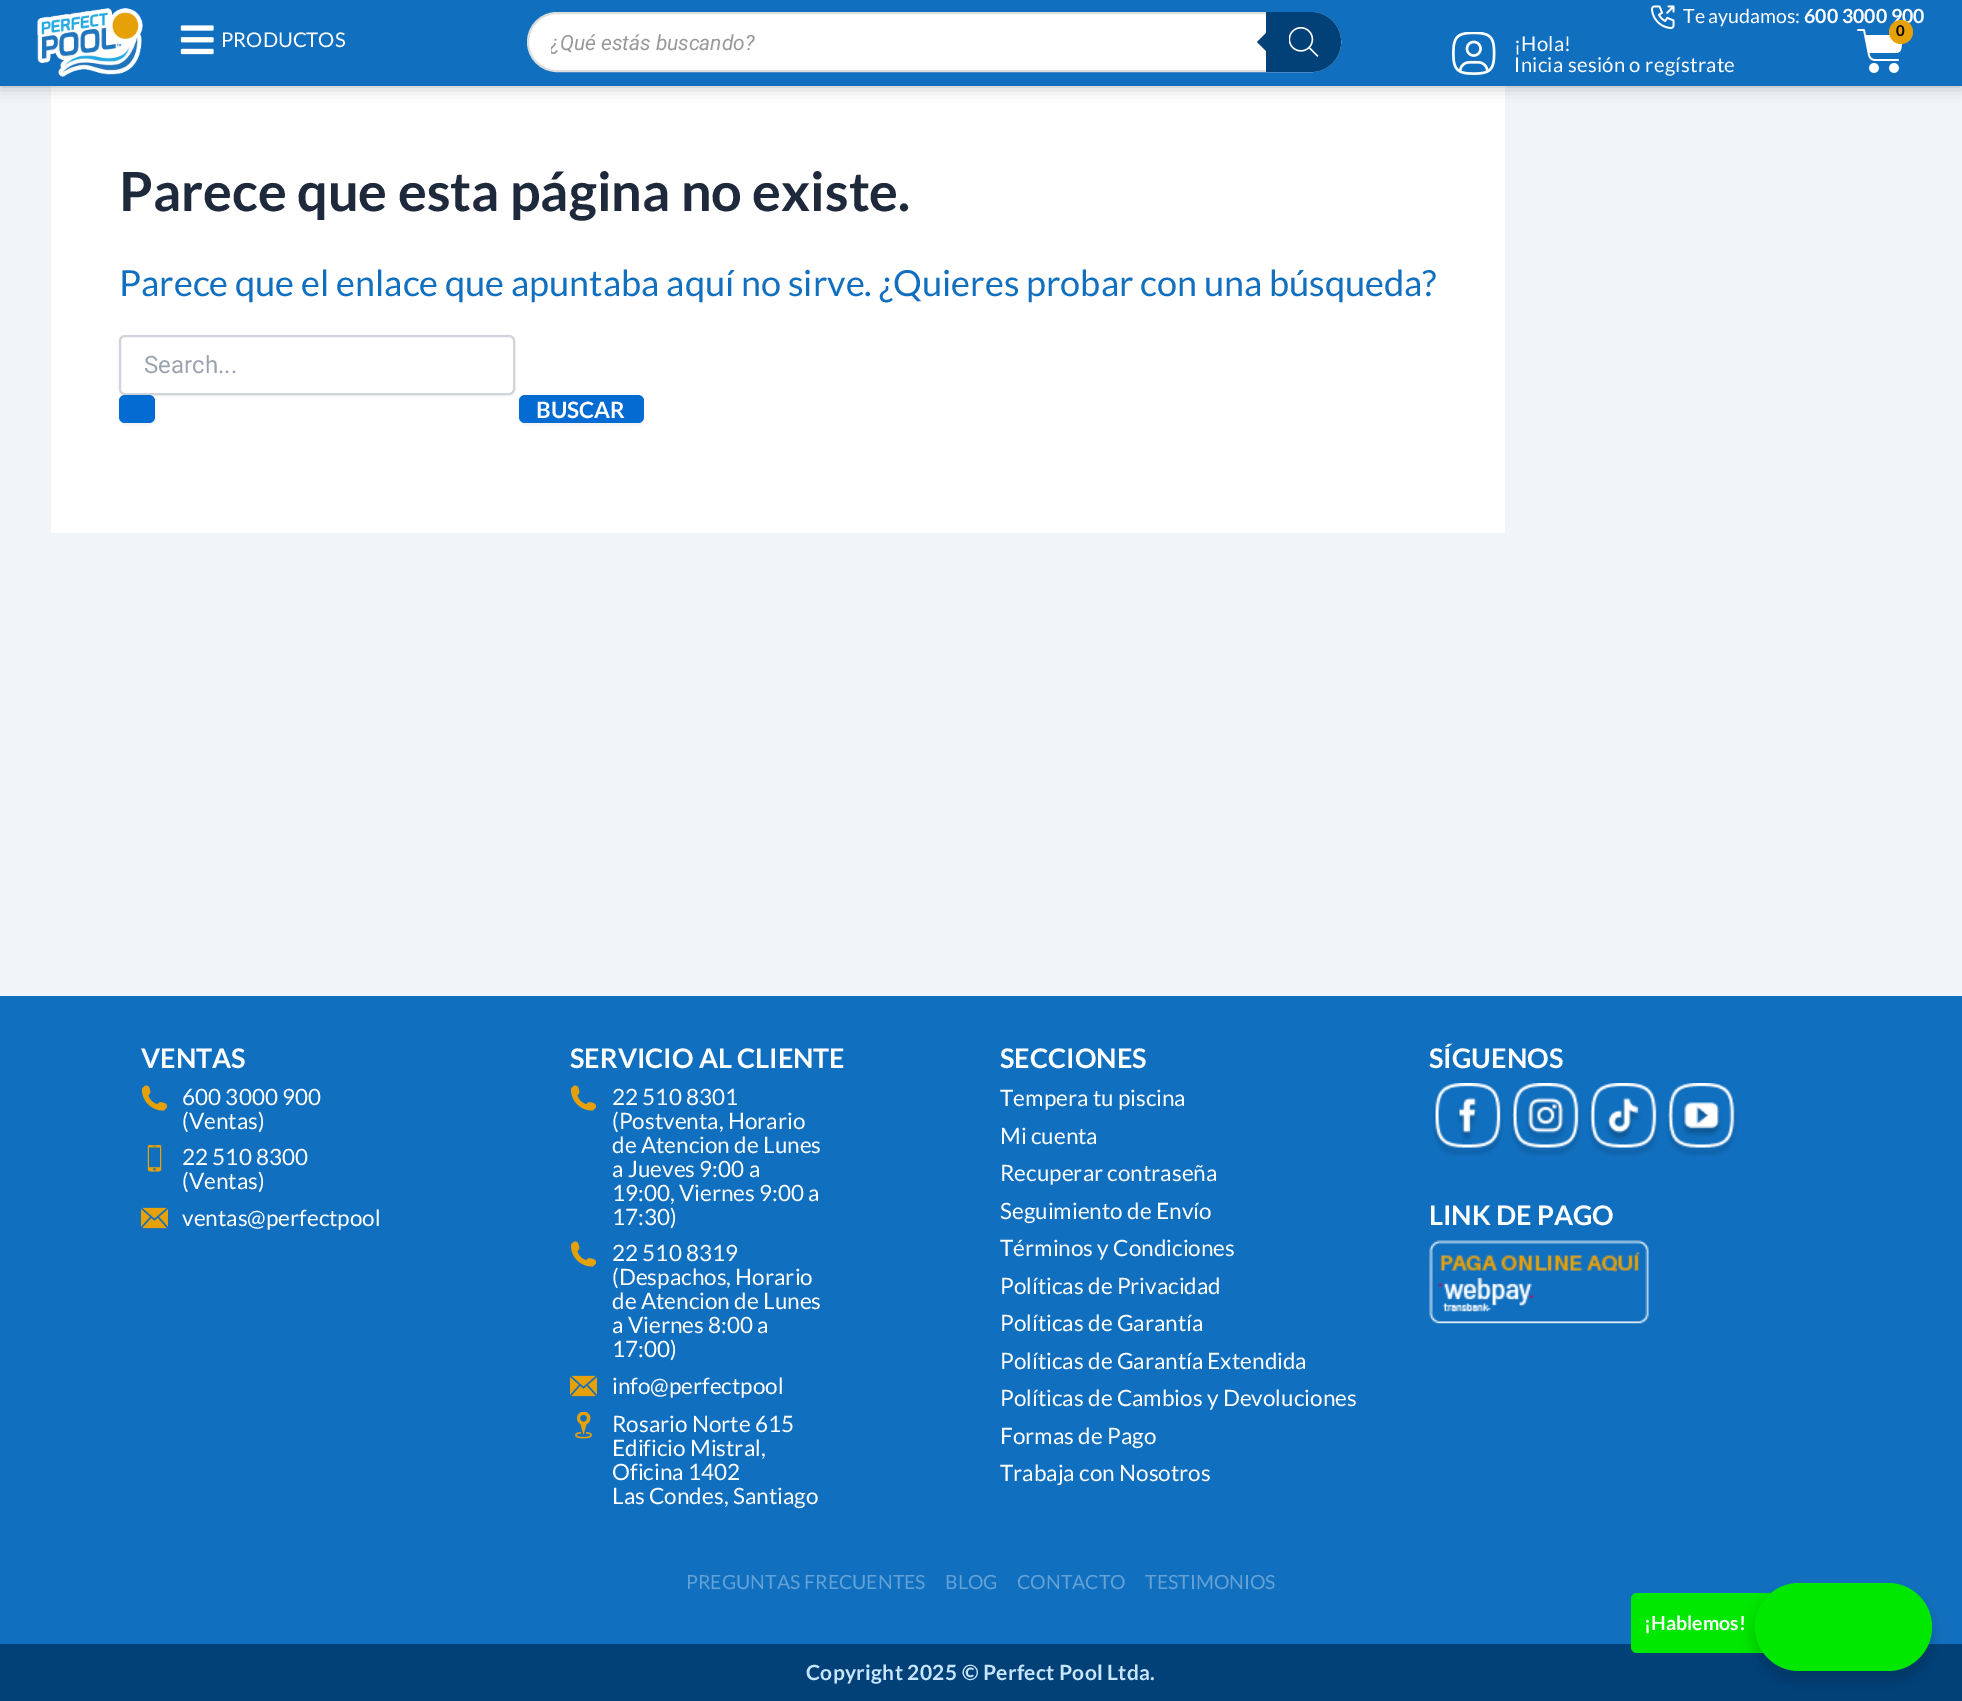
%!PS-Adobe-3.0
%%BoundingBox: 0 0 1962 1701
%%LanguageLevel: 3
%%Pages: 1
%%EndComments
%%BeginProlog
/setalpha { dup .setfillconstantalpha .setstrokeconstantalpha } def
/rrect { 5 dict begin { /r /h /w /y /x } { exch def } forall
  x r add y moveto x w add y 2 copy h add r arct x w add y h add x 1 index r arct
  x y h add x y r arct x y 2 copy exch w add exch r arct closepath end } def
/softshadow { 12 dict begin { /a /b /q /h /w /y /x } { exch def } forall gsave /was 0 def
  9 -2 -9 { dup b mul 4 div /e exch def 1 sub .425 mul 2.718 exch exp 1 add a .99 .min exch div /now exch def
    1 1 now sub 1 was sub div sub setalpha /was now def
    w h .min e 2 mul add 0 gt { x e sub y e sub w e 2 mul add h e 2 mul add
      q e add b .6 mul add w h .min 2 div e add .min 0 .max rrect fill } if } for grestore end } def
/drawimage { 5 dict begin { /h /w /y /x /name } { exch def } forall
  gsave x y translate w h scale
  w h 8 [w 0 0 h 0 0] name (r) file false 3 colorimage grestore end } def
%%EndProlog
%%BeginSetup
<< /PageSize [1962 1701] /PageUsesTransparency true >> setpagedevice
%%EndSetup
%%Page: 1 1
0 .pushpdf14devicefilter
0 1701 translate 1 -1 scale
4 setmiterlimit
0.941 0.961 0.98 setrgbcolor
0 0 1962 1701 rectfill
1 setgray
51 86 1454 447 rectfill
0 setgray
0 0 1962 86 0 7.5 0.3 softshadow
0.067 0.435 0.749 setrgbcolor
0 0 1962 86 rectfill
(images/1.raw) 1651 5 24 24 drawimage
(images/2.raw) 37 8 106 69 drawimage
(images/3.raw) 180 25 34 30 drawimage
1 setgray
528 13 812 58 29 rrect gsave fill grestore
0.867 setgray
2 setlinewidth
stroke
0.004 0.255 0.467 setrgbcolor
newpath 1266 12 moveto 1311 12 lineto 1327.5 12 1341 25.5 1341 42 curveto 1341 58.5 1327.5 72 1311 72 curveto 1266 72 lineto closepath fill
newpath 1269 30 moveto 1269 54 lineto 1257 42 lineto closepath fill
(images/4.raw) 1289 27 30 30 drawimage
(images/5.raw) 1857 29 46 44 drawimage
(images/6.raw) 1452 32 44 43 drawimage
0 setgray
119 336 396 60 6 1.5 0.05 softshadow
1 setgray
120 336 394 58 5 rrect gsave fill grestore
0.82 0.835 0.859 setrgbcolor
stroke
0 setgray
119 396 36 29 6 1.5 0.05 softshadow
0.016 0.42 0.824 setrgbcolor
119 395 36 28 6 rrect fill
0 setgray
519 396 125 29 6 1.5 0.05 softshadow
0.016 0.42 0.824 setrgbcolor
519 395 125 28 6 rrect fill
0.067 0.435 0.749 setrgbcolor
0 996 1962 648 rectfill
(images/7.raw) 141 1085 27 26 drawimage
(images/8.raw) 147 1145 15 27 drawimage
(images/9.raw) 141 1207 27 22 drawimage
(images/7.raw) 570 1085 27 26 drawimage
(images/7.raw) 570 1241 27 26 drawimage
(images/9.raw) 570 1375 27 22 drawimage
(images/10.raw) 575 1412 17 27 drawimage
(images/11.raw) 1432 1083 71 74 drawimage
(images/12.raw) 1510 1083 71 74 drawimage
(images/13.raw) 1588 1083 71 74 drawimage
(images/14.raw) 1666 1083 71 74 drawimage
(images/15.raw) 1429 1240 220 84 drawimage
0.004 0.255 0.467 setrgbcolor
0 1644 1962 57 rectfill
0 0.906 0 setrgbcolor
1631 1593 145 60 6 rrect fill
0 setgray
1752 1589 183 94 47 6 0.14 softshadow
0 0.906 0 setrgbcolor
1755 1583 177 88 44 rrect fill
/Lato-Regular [19.5 0 0 -19.5 0 0] selectfont
1 setgray
1683 23 moveto (Te ayudamos:) show
/Lato-Bold [19.5 0 0 -19.5 0 0] selectfont
1804 23 moveto (600 3000 900) show
/Lato-Regular [20.25 0 0 -20.25 0 0] selectfont
221 47 moveto (PRODUCTOS) show
gsave
551 30 766 24 rectclip
/Roboto-Italic [21 0 0 -21 0 0] selectfont
0.6 setgray
550 50 moveto (¿Qué estás buscando?) show
grestore
0.906 0.631 0.031 setrgbcolor
newpath 1901 32 12 0 360 arc closepath fill
/Lato-Bold [15 0 0 -15 0 0] selectfont
0 setgray
1896 36 moveto (0) show
/Lato-Regular [20.25 0 0 -20.25 0 0] selectfont
1 setgray
1514 51 moveto 0.3 0 (¡Hola!) ashow
1514 72 moveto 0.3 0 (Inicia sesión o regístrate) ashow
/Lato-Bold [54 0 0 -54 0 0] selectfont
0.118 0.161 0.231 setrgbcolor
119 211 moveto (Parece que esta página no existe.) show
/Lato-Regular [36 0 0 -36 0 0] selectfont
0.067 0.435 0.749 setrgbcolor
119 296 moveto (Parece que el enlace que apuntaba aquí no sirve. ¿Quieres probar con una búsqueda?) show
/Roboto-Regular [24 0 0 -24 0 0] selectfont
0.612 0.639 0.686 setrgbcolor
144 373 moveto (Search...) show
/Lato-Bold [22.5 0 0 -22.5 0 0] selectfont
1 setgray
536 418 moveto (BUSCAR) show
/Lato-Bold [27 0 0 -27 0 0] selectfont
141 1068 moveto (VENTAS) show
/Lato-Regular [22.5 0 0 -22.5 0 0] selectfont
182 1105 moveto (600 3000 900) show
182 1129 moveto (\(Ventas\)) show
182 1165 moveto (22 510 8300) show
182 1189 moveto (\(Ventas\)) show
182 1226 moveto (ventas@perfectpool) show
/Lato-Bold [27 0 0 -27 0 0] selectfont
570 1068 moveto (SERVICIO AL CLIENTE) show
/Lato-Regular [22.5 0 0 -22.5 0 0] selectfont
612 1105 moveto (22 510 8301) show
612 1129 moveto (\(Postventa, Horario) show
612 1153 moveto (de Atencion de Lunes) show
612 1177 moveto (a Jueves 9:00 a) show
612 1201 moveto (19:00, Viernes 9:00 a) show
612 1225 moveto (17:30\)) show
612 1261 moveto (22 510 8319) show
612 1285 moveto (\(Despachos, Horario) show
612 1309 moveto (de Atencion de Lunes) show
612 1333 moveto (a Viernes 8:00 a) show
612 1357 moveto (17:00\)) show
612 1394 moveto (info@perfectpool) show
612 1432 moveto (Rosario Norte 615) show
612 1456 moveto (Edificio Mistral,) show
612 1480 moveto (Oficina 1402) show
612 1504 moveto (Las Condes, Santiago) show
/Lato-Bold [27 0 0 -27 0 0] selectfont
1000 1068 moveto (SECCIONES) show
/Lato-Regular [22.5 0 0 -22.5 0 0] selectfont
1000 1106 moveto (Tempera tu piscina) show
1000 1144 moveto (Mi cuenta) show
1000 1181 moveto (Recuperar contraseña) show
1000 1219 moveto (Seguimiento de Envío) show
1000 1256 moveto (Términos y Condiciones) show
1000 1294 moveto (Políticas de Privacidad) show
1000 1331 moveto (Políticas de Garantía) show
1000 1369 moveto (Políticas de Garantía Extendida) show
1000 1406 moveto (Políticas de Cambios y Devoluciones) show
1000 1444 moveto (Formas de Pago) show
1000 1481 moveto (Trabaja con Nosotros) show
/Lato-Bold [27 0 0 -27 0 0] selectfont
1429 1068 moveto (SÍGUENOS) show
1429 1225 moveto (LINK DE PAGO) show
/Lato-Regular [19.5 0 0 -19.5 0 0] selectfont
0.392 0.631 0.835 setrgbcolor
686 1589 moveto (PREGUNTAS FRECUENTES) show
945 1589 moveto (BLOG) show
1017 1589 moveto (CONTACTO) show
1145 1589 moveto (TESTIMONIOS) show
/Lato-Bold [21 0 0 -21 0 0] selectfont
0.78 0.898 1 setrgbcolor
806 1680 moveto 0.3 0 (Copyright 2025 © Perfect Pool Ltda.) ashow
/Lato-Bold [19.5 0 0 -19.5 0 0] selectfont
1 setgray
1644 1630 moveto (¡Hablemos!) show
.poppdf14devicefilter showpage
%%EOF
